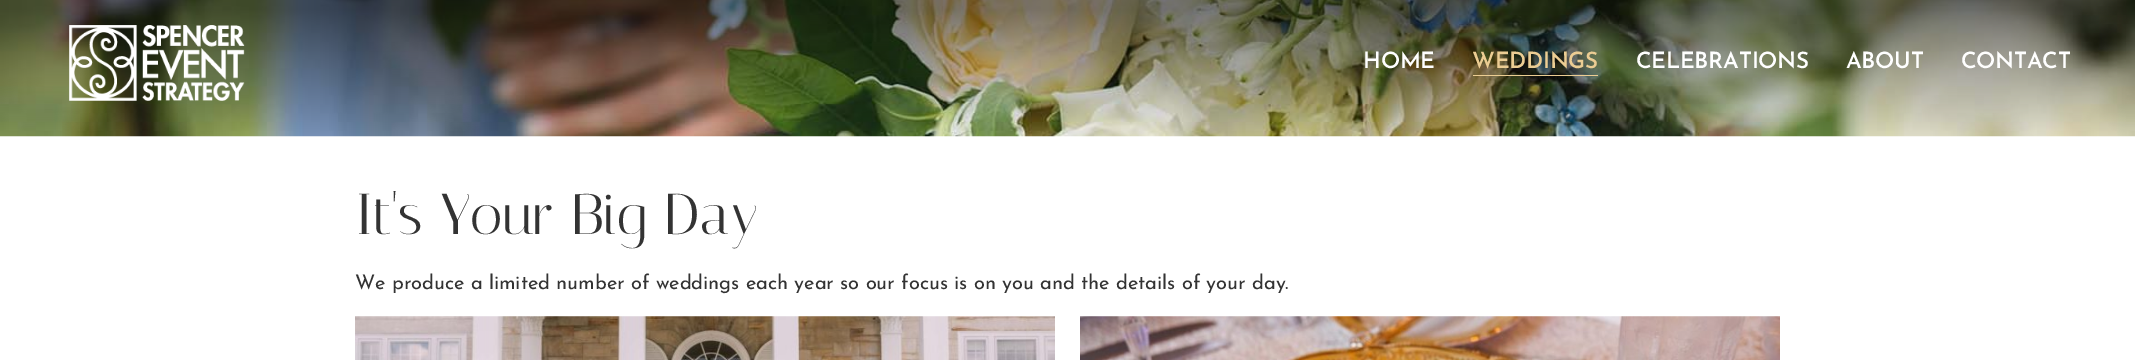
%!PS-Adobe-3.0
%%BoundingBox: 0 0 2135 360
%%LanguageLevel: 3
%%Pages: 1
%%EndComments
%%BeginProlog
/drawimage { 5 dict begin { /h /w /y /x /name } { exch def } forall
  gsave x y translate w h scale
  w h 8 [w 0 0 h 0 0] name (r) file false 3 colorimage grestore end } def
%%EndProlog
%%BeginSetup
<< /PageSize [2135 360] >> setpagedevice
%%EndSetup
%%Page: 1 1
0 360 translate 1 -1 scale
4 setmiterlimit
1 setgray
0 0 2135 360 rectfill
(images/2.raw) 0 0 2135 137 drawimage
(images/1.raw) 69 25 176 76 drawimage
0.925 0.804 0.576 setrgbcolor
1473 75 125 1 rectfill
(images/3.raw) 355 316 700 44 drawimage
(images/4.raw) 1080 316 700 44 drawimage
/JosefinSans-SemiBold [22.5 0 0 -22.5 0 0] selectfont
1 setgray
1363 68 moveto -0.25 0 (HOME) ashow
0.925 0.804 0.576 setrgbcolor
1472 68 moveto -0.25 0 (WEDDINGS) ashow
1 setgray
1636 68 moveto -0.25 0 (CELEBRATIONS) ashow
1846 68 moveto -0.25 0 (ABOUT) ashow
1961 68 moveto -0.25 0 (CONTACT) ashow
/Italiana-Regular [57.5 0 0 -57.5 0 0] selectfont
0.2 setgray
355 234 moveto (It's Your Big Day) show
/JosefinSans-Regular [20 0 0 -20 0 0] selectfont
355 289 moveto (We produce a limited number of weddings each year so our focus is on you and the details of your day.) show
showpage
%%EOF
